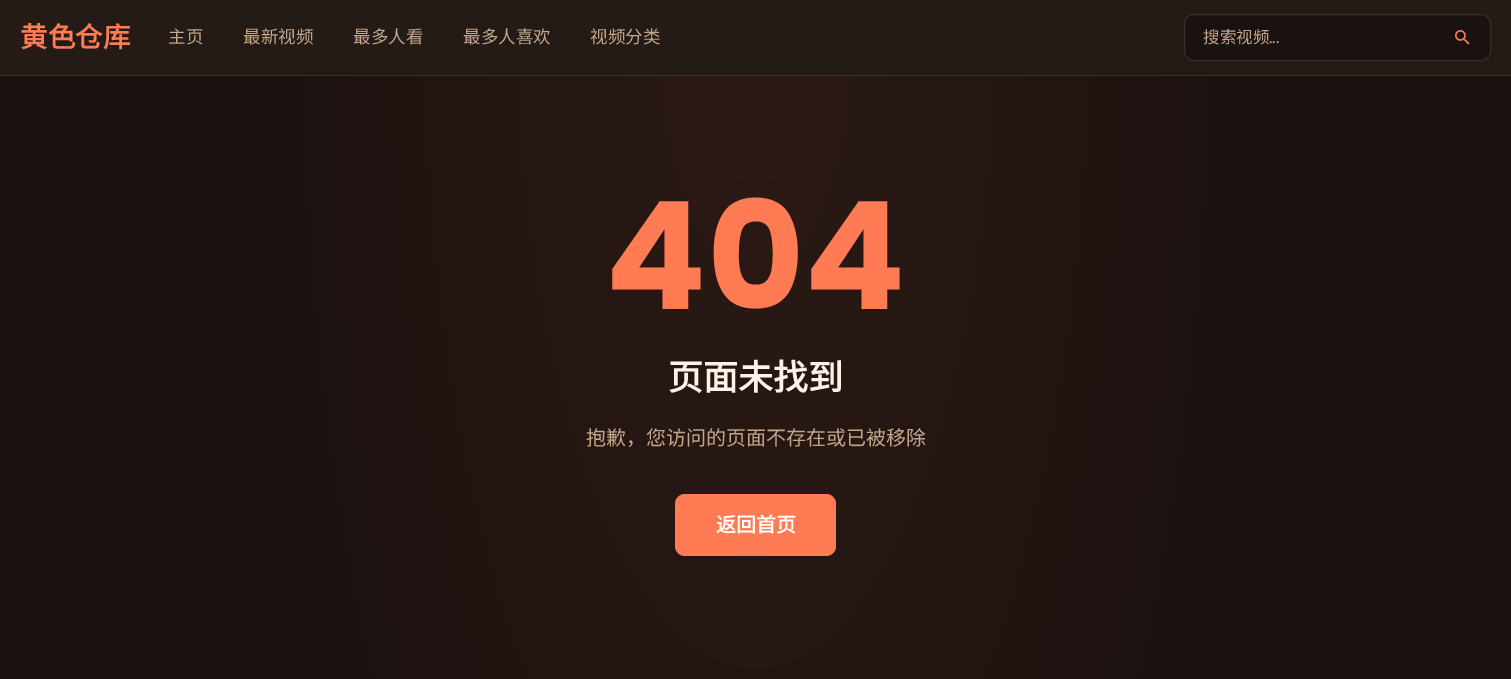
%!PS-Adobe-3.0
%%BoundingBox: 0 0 1511 679
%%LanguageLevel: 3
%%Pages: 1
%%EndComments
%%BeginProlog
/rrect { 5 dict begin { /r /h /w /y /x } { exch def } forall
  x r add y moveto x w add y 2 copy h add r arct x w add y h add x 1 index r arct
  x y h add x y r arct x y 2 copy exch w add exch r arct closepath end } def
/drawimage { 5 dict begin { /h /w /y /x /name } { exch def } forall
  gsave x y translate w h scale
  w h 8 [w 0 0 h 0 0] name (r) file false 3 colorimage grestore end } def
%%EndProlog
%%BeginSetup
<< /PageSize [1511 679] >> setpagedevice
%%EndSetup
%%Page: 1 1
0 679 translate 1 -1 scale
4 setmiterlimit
1 setgray
0 0 1511 679 rectfill
gsave newpath 0 76 moveto 1511 76 lineto 1511 679 lineto 0 679 lineto closepath clip newpath 756 0 translate 1069 2973 scale
<< /ShadingType 3 /ColorSpace /DeviceRGB /Coords [0 0 0 0 0 1] /Extend [true true] /Function << /FunctionType 3 /Domain [0 1] /Functions [<< /FunctionType 2 /Domain [0 1] /C0 [0.173 0.102 0.082] /C1 [0.102 0.071 0.063] /N 1 >> << /FunctionType 2 /Domain [0 1] /C0 [0.102 0.071 0.063] /C1 [0.102 0.071 0.063] /N 1 >>] /Bounds [0.5] /Encode [0 1 0 1] >> >> shfill grestore
gsave newpath 0 0 moveto 1511 0 lineto 1511 75 lineto 0 75 lineto closepath clip newpath 756 0 translate 1069 2973 scale
<< /ShadingType 3 /ColorSpace /DeviceRGB /Coords [0 0 0 0 0 1] /Extend [true true] /Function << /FunctionType 3 /Domain [0 1] /Functions [<< /FunctionType 2 /Domain [0 1] /C0 [0.141 0.102 0.086] /C1 [0.141 0.102 0.086] /N 1 >> << /FunctionType 2 /Domain [0 1] /C0 [0.141 0.102 0.086] /C1 [0.141 0.102 0.086] /N 1 >>] /Bounds [0.5] /Encode [0 1 0 1] >> >> shfill grestore
0.239 0.18 0.141 setrgbcolor
0 75 1511 1 rectfill
0.102 0.071 0.063 setrgbcolor
1184.5 14.5 306 46 9.5 rrect gsave fill grestore
0.239 0.18 0.141 setrgbcolor
stroke
(images/1.raw) 1455 30 15 15 drawimage
1 0.482 0.329 setrgbcolor
675 494 161 62 10 rrect fill
/NotoSansCJKSC-Bold [27.5 0 0 -27.5 0 0] selectfont
20 47 moveto (黄色仓库) show
/NotoSansCJKSC-Regular [17.5 0 0 -17.5 0 0] selectfont
0.769 0.651 0.541 setrgbcolor
168 43 moveto (主页) show
243 43 moveto (最新视频) show
353 43 moveto (最多人看) show
463 43 moveto (最多人喜欢) show
590 43 moveto (视频分类) show
/NotoSansCJKSC-Regular [16.5 0 0 -16.5 0 0] selectfont
1203 43 moveto (搜索视频) show
/Poppins-Regular [16.5 0 0 -16.5 0 0] selectfont
1269 43 moveto (...) show
/Poppins-Bold [150 0 0 -150 0 0] selectfont
1 0.482 0.329 setrgbcolor
605 309 moveto (404) show
/NotoSansCJKSC-Bold [35 0 0 -35 0 0] selectfont
0.996 0.953 0.91 setrgbcolor
668 390 moveto (页面未找到) show
/NotoSansCJKSC-Regular [20 0 0 -20 0 0] selectfont
0.769 0.651 0.541 setrgbcolor
586 445 moveto (抱歉，您访问的页面不存在或已被移除) show
/NotoSansCJKSC-Bold [20 0 0 -20 0 0] selectfont
1 setgray
716 532 moveto (返回首页) show
showpage
%%EOF
